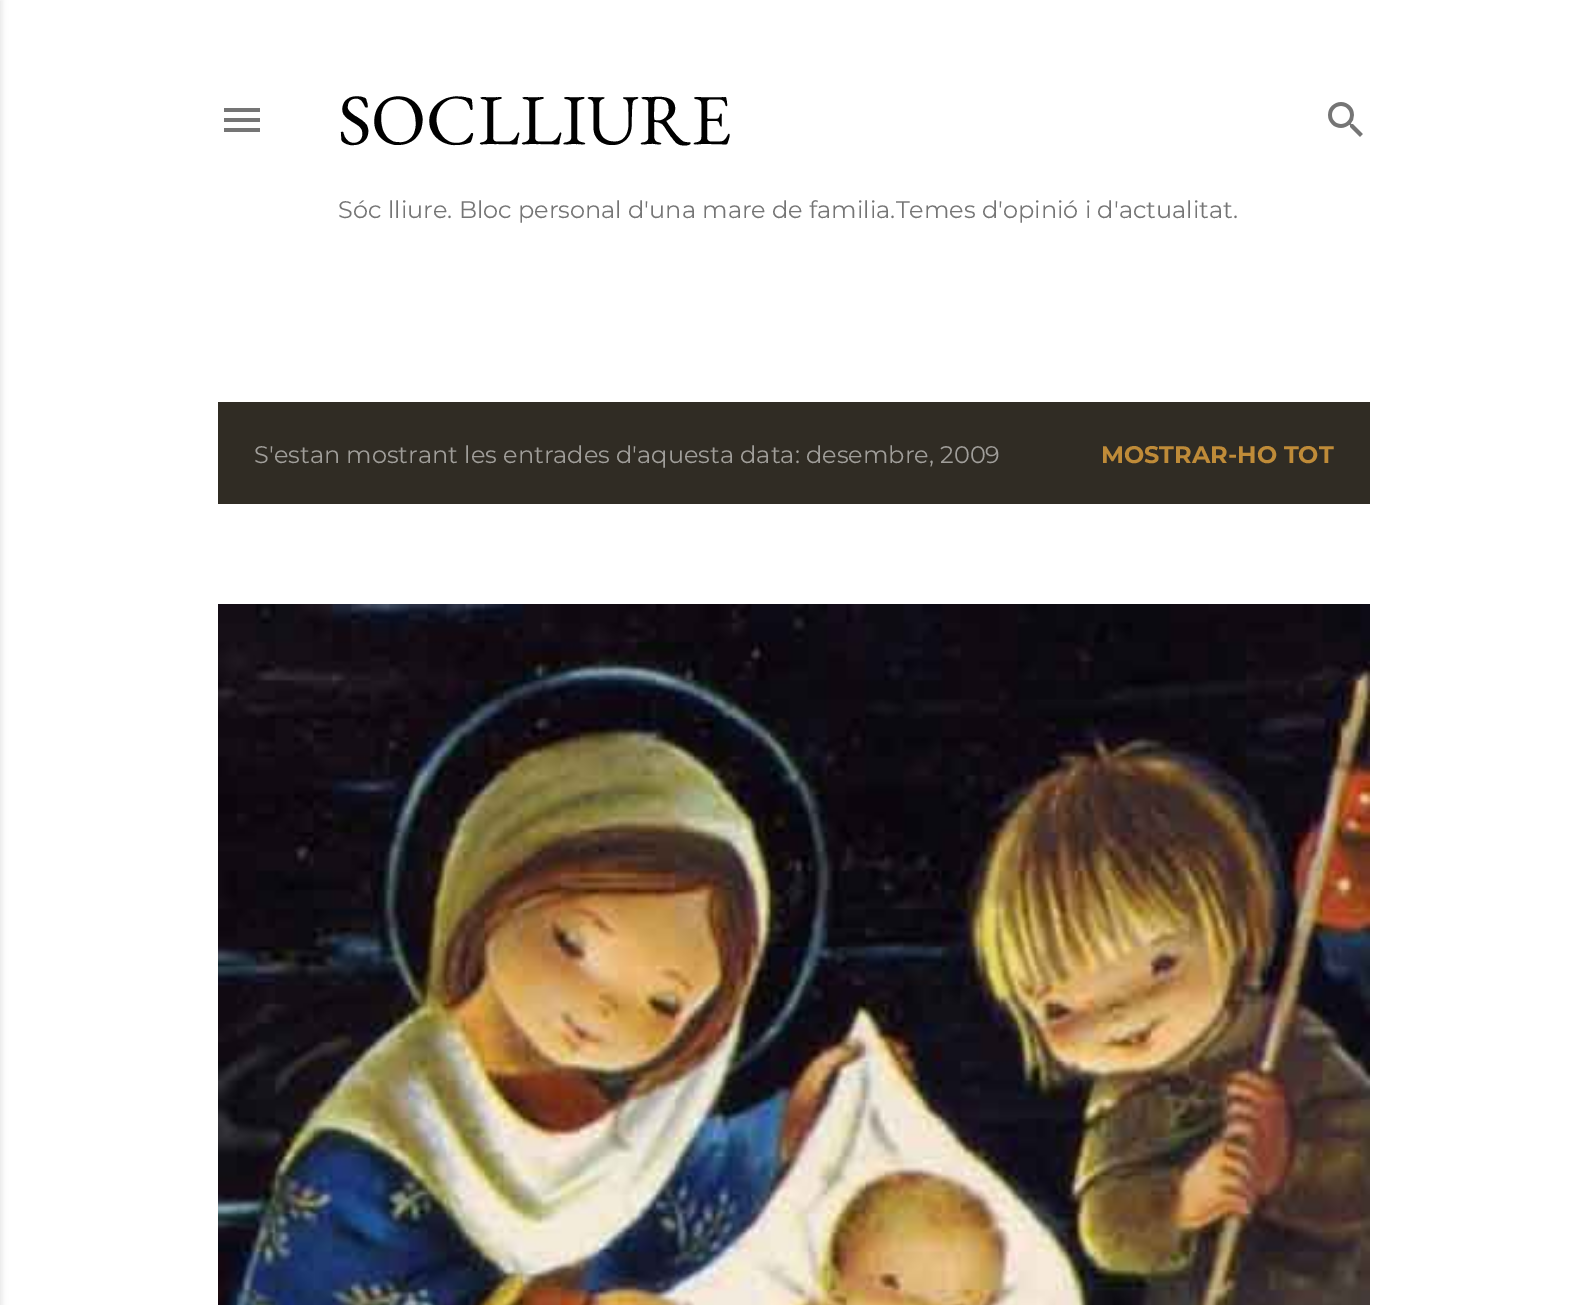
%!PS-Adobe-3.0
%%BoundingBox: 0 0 1588 1305
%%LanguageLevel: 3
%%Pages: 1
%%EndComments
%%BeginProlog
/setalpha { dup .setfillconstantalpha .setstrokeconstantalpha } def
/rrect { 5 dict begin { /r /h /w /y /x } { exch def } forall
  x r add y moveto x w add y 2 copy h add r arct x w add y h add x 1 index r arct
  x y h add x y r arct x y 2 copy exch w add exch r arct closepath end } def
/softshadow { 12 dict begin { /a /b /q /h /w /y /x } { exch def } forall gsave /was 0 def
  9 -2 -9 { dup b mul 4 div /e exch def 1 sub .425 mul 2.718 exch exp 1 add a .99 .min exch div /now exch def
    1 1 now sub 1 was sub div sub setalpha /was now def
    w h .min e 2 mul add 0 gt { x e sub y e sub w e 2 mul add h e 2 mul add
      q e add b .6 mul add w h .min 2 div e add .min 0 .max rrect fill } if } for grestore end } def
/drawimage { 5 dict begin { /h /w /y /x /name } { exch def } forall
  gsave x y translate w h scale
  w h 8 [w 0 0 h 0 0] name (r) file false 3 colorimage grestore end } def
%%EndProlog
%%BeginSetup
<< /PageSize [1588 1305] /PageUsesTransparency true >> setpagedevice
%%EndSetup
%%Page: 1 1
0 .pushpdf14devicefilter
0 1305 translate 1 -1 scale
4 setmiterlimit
1 setgray
0 0 1588 1305 rectfill
0 setgray
-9 0 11 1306 0 3 0.1 softshadow
(images/1.raw) 224 108 36 24 drawimage
(images/2.raw) 1328 102 35 35 drawimage
0.188 0.173 0.141 setrgbcolor
218 402 1152 102 rectfill
(images/3.raw) 218 604 1152 701 drawimage
/EBGaramond-Regular [72 0 0 -72 0 0] selectfont
0 setgray
338 144 moveto (SOCLLIURE) show
/Montserrat-Regular [24 0 0 -24 0 0] selectfont
0.459 setgray
338 218 moveto (Sóc lliure. Bloc personal d'una mare de familia.Temes d'opinió i d'actualitat.) show
0.627 0.62 0.604 setrgbcolor
254 463 moveto (S'estan mostrant les entrades d'aquesta data: desembre, 2009) show
/Montserrat-Bold [24 0 0 -24 0 0] selectfont
0.749 0.545 0.22 setrgbcolor
1101 463 moveto (MOSTRAR-HO TOT) show
.poppdf14devicefilter showpage
%%EOF
